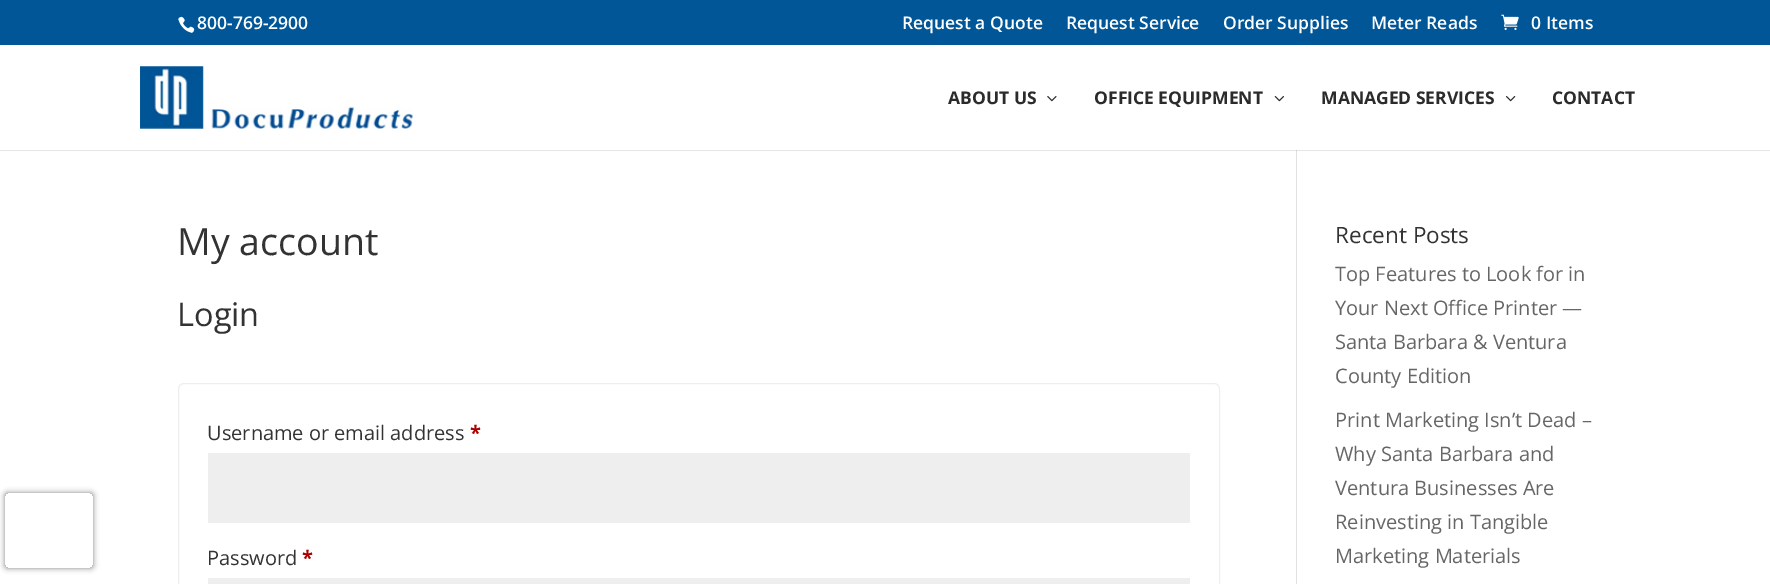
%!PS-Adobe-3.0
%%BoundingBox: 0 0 1770 584
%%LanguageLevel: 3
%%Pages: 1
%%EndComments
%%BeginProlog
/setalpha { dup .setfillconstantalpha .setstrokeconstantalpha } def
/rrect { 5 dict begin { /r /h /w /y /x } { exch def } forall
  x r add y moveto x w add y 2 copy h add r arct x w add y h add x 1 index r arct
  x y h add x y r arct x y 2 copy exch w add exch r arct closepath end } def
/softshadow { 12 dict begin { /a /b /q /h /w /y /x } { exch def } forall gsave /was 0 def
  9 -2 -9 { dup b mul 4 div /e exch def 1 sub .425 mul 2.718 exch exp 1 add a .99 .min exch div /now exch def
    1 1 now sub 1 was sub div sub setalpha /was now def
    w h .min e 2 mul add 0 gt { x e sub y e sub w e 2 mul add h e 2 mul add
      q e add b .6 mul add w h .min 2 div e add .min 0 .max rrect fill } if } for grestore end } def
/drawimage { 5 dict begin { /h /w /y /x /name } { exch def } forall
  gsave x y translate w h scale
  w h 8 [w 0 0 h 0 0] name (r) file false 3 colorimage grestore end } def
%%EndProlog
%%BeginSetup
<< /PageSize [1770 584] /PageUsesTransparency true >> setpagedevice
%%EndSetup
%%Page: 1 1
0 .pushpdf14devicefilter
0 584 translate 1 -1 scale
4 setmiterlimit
1 setgray
0 0 1770 584 rectfill
0.902 setgray
0 150 1770 1 rectfill
gsave
newpath 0 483 moveto 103 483 lineto 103 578 lineto 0 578 lineto closepath 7.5 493 moveto 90.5 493 lineto 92 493 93 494 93 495.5 curveto 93 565.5 lineto 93 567 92 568 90.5 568 curveto 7.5 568 lineto 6 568 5 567 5 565.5 curveto 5 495.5 lineto 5 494 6 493 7.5 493 curveto closepath eoclip newpath
0.502 setgray
5 493 88 75 2.5 3 1 softshadow
grestore
0 0.337 0.588 setrgbcolor
0 0 1770 45 rectfill
(images/1.raw) 178 16 17 17 drawimage
(images/2.raw) 1501 14 18 16 drawimage
(images/3.raw) 140 66 273 63 drawimage
(images/4.raw) 1047 96 10 6 drawimage
(images/5.raw) 1274 96 10 6 drawimage
(images/6.raw) 1506 96 10 6 drawimage
0.886 setgray
1296 150 1 434 rectfill
0.796 setgray
1296 150 1 1 rectfill
0.933 setgray
178.5 383.5 1041 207 5.5 rrect stroke
208 453 982 70 rectfill
208 578 982 6 rectfill
/OpenSans-SemiBold [17.5 0 0 -17.5 0 0] selectfont
1 setgray
197 29 moveto (800-769-2900) show
902 29 moveto (Request a Quote) show
1066 29 moveto (Request Service) show
1223 29 moveto (Order Supplies) show
1371 29 moveto (Meter Reads) show
1531 29 moveto (0 Items) show
/OpenSans-Bold [17.5 0 0 -17.5 0 0] selectfont
0.169 setgray
948 104 moveto (ABOUT US) show
1094 104 moveto (OFFICE EQUIPMENT) show
1321 104 moveto (MANAGED SERVICES) show
1552 104 moveto (CONTACT) show
/OpenSans-Regular [37.5 0 0 -37.5 0 0] selectfont
0.2 setgray
177 255 moveto (My account) show
/OpenSans-Regular [32.5 0 0 -32.5 0 0] selectfont
177 326 moveto (Login) show
/OpenSans-Regular [20 0 0 -20 0 0] selectfont
207 440 moveto (Username or email address) show
/OpenSans-Bold [20 0 0 -20 0 0] selectfont
0.667 0 0 setrgbcolor
470 440 moveto (*) show
/OpenSans-Regular [20 0 0 -20 0 0] selectfont
0.2 setgray
207 565 moveto (Password) show
/OpenSans-Bold [20 0 0 -20 0 0] selectfont
0.667 0 0 setrgbcolor
302 565 moveto (*) show
/OpenSans-Regular [22.5 0 0 -22.5 0 0] selectfont
0.2 setgray
1335 243 moveto (Recent Posts) show
/OpenSans-Regular [20 0 0 -20 0 0] selectfont
0.4 setgray
1335 281 moveto (Top Features to Look for in) show
1335 315 moveto (Your Next Office Printer —) show
1335 349 moveto (Santa Barbara & Ventura) show
1335 383 moveto (County Edition) show
1335 427 moveto (Print Marketing Isn’t Dead –) show
1335 461 moveto (Why Santa Barbara and) show
1335 495 moveto (Ventura Businesses Are) show
1335 529 moveto (Reinvesting in Tangible) show
1335 563 moveto (Marketing Materials) show
.poppdf14devicefilter showpage
%%EOF
